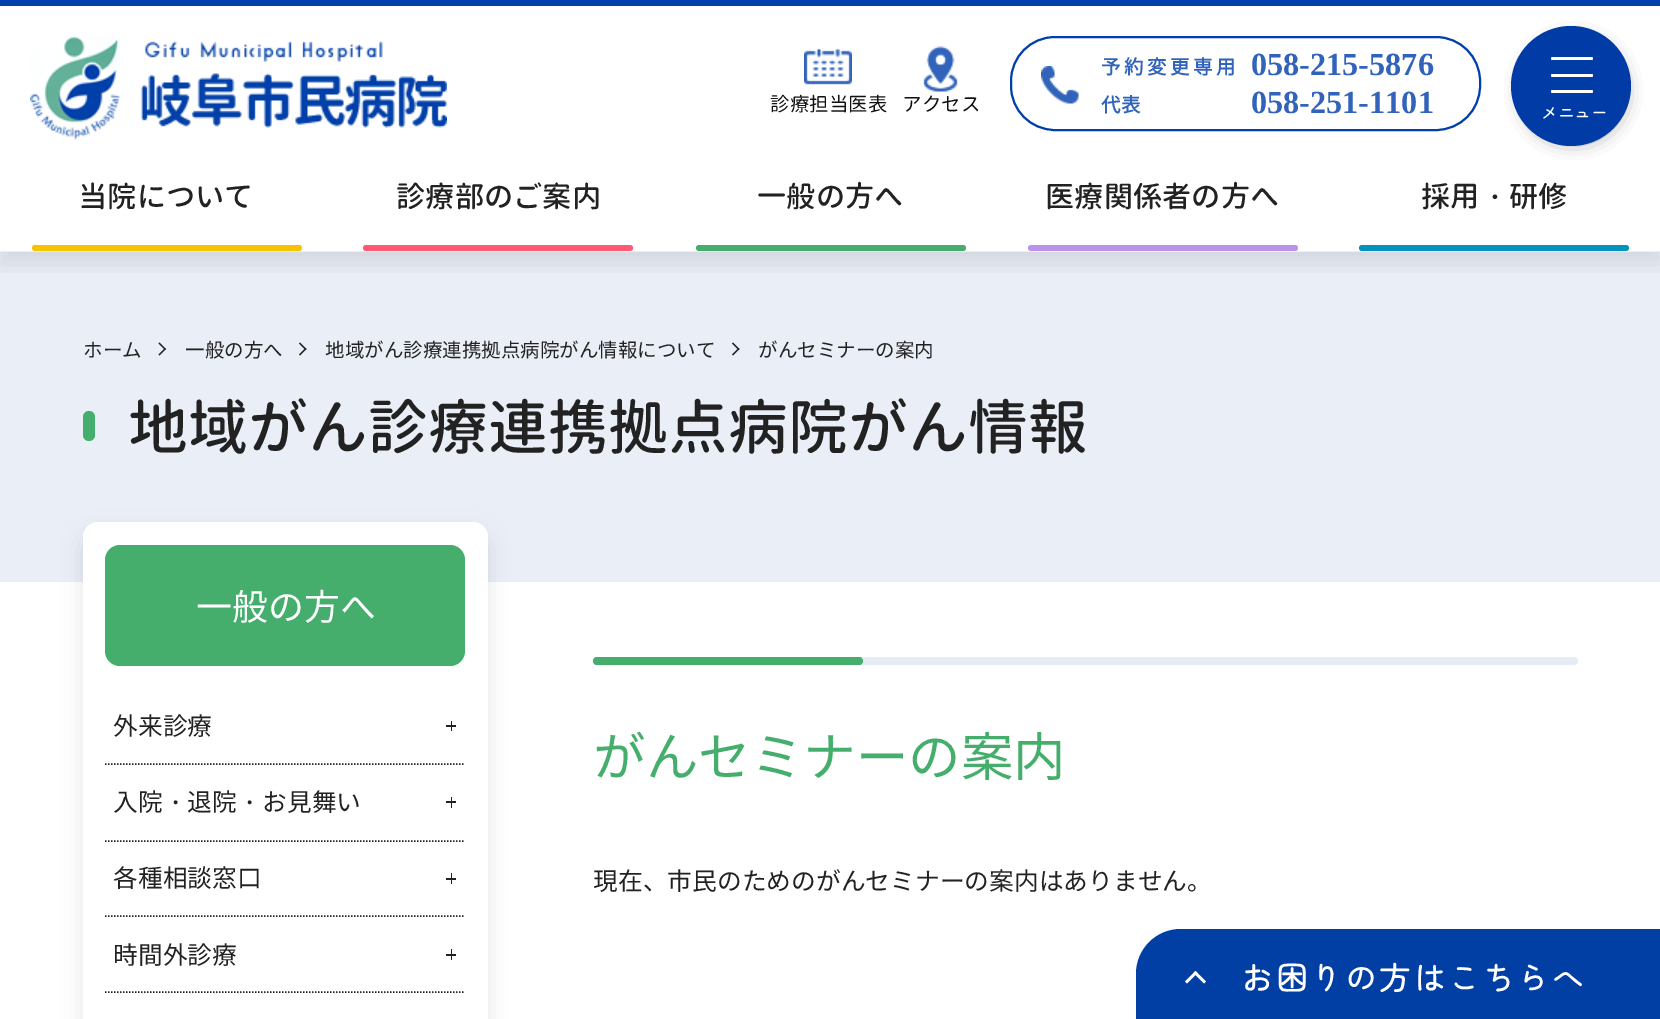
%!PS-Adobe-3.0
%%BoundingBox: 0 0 1660 1019
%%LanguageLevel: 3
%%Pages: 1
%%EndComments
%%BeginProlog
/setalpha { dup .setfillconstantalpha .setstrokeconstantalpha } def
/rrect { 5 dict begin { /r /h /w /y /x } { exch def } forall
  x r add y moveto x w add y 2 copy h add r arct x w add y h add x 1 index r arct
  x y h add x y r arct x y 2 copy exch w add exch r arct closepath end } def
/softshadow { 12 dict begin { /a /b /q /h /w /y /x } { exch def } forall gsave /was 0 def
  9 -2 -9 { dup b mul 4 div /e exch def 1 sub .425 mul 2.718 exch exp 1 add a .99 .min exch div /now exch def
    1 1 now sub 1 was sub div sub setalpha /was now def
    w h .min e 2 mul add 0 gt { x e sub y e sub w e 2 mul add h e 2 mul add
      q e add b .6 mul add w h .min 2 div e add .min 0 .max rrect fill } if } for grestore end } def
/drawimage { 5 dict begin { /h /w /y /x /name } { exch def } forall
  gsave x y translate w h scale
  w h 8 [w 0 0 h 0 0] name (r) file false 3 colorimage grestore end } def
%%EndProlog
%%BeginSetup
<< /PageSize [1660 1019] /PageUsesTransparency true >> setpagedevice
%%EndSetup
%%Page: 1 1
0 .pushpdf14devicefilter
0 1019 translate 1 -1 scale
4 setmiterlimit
1 setgray
0 0 1660 1019 rectfill
0.008 0.251 0.671 setrgbcolor
0 0 1660 6 rectfill
gsave
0 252 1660 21 rectclip
0 setgray
0 152 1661 112 0 11 0.1 softshadow
grestore
(images/1.raw) 30 36 417 104 drawimage
(images/2.raw) 804 48 48 37 drawimage
(images/3.raw) 923 46 35 46 drawimage
(images/4.raw) 1041 66 38 38 drawimage
0.004 0.251 0.663 setrgbcolor
2 setlinewidth
1011 37 469 93 44 rrect stroke
0 setgray
1524 41 99 99 49.5 9 0.6 softshadow
0.004 0.235 0.651 setrgbcolor
newpath 1571 86 60 0 360 arc closepath fill
1 setgray
1551 57 42 3 1.5 rrect fill
1551 74 42 3 1.5 rrect fill
1551 90 42 3 1.5 rrect fill
0.961 0.765 0 setrgbcolor
32 245 270 6 3 rrect fill
1 0.349 0.451 setrgbcolor
363 245 270 6 3 rrect fill
0.271 0.682 0.424 setrgbcolor
696 245 270 6 3 rrect fill
0.733 0.576 0.914 setrgbcolor
1028 245 270 6 3 rrect fill
0.004 0.573 0.745 setrgbcolor
1359 245 270 6 3 rrect fill
0.09 setalpha
0.039 0.275 0.655 setrgbcolor
0 251 1660 331 rectfill
1 setalpha
0.133 setgray
newpath 159.5 342.5 moveto 166 349 lineto 165 350 lineto 158.5 343.5 lineto closepath fill
newpath 165 348 moveto 166 349 lineto 159.5 355.5 lineto 158.5 354.5 lineto closepath fill
newpath 300 342.5 moveto 306.5 349 lineto 305.5 350 lineto 299 343.5 lineto closepath fill
newpath 305.5 348 moveto 306.5 349 lineto 300 355.5 lineto 299 354.5 lineto closepath fill
newpath 733 342.5 moveto 739.5 349 lineto 738.5 350 lineto 732 343.5 lineto closepath fill
newpath 738.5 348 moveto 739.5 349 lineto 733 355.5 lineto 732 354.5 lineto closepath fill
0.271 0.682 0.424 setrgbcolor
83 411 12 30 6 rrect fill
0 setgray
83 534 405 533 15 11 0.1 softshadow
1 setgray
83 522 405 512 15 rrect fill
0.271 0.682 0.424 setrgbcolor
105 545 360 121 15 rrect fill
0.133 setgray
1.5 setlinewidth
[1.5 1.5] 0 setdash
newpath 105 764 moveto 465 764 lineto stroke
451 721 1 10 rectfill
446 725 10 2 rectfill
newpath 105 841 moveto 465 841 lineto stroke
451 797 1 11 rectfill
446 801 10 2 rectfill
newpath 105 916 moveto 465 916 lineto stroke
451 873 1 11 rectfill
446 878 10 2 rectfill
newpath 105 992 moveto 465 992 lineto stroke
451 949 1 11 rectfill
446 954 10 2 rectfill
0.902 0.925 0.965 setrgbcolor
593 657 985 8 4 rrect fill
0.271 0.682 0.424 setrgbcolor
593 657 270 8 4 rrect fill
0.004 0.247 0.643 setrgbcolor
newpath 1181 929 moveto 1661 929 lineto 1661 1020 lineto 1136 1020 lineto 1136 974 lineto 1136 949 1156 929 1181 929 curveto closepath fill
1 setgray
newpath 1185 981.5 moveto 1195.5 971 lineto 1197.5 973 lineto 1187 983.5 lineto closepath fill
newpath 1193.5 973 moveto 1195.5 971 lineto 1206 981.5 lineto 1204 983.5 lineto closepath fill
/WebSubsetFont-Regular [19.5 0 0 -19.5 0 0] selectfont
0.067 setgray
770 111 moveto (診療担当医表) show
902 111 moveto (アクセス) show
/WebSubsetFont-Bold [19.5 0 0 -19.5 0 0] selectfont
0.188 0.388 0.725 setrgbcolor
1101 74 moveto 3.5 0 (予約変更専用) ashow
/LiberationSerif-Bold [32.25 0 0 -32.25 0 0] selectfont
1251 75 moveto (058-215-5876) show
/WebSubsetFont-Bold [19.5 0 0 -19.5 0 0] selectfont
1101 112 moveto (代表) show
/LiberationSerif-Bold [32.25 0 0 -32.25 0 0] selectfont
1251 113 moveto (058-251-1101) show
/ZenMaruGothic-Bold [16.5 0 0 -16.5 0 0] selectfont
1 setgray
1541 119 moveto (メニュー) show
/WebSubsetFont-Medium [29.25 0 0 -29.25 0 0] selectfont
0.133 setgray
78 207 moveto (当院について) show
396 207 moveto (診療部のご案内) show
757 207 moveto (一般の方へ) show
1045 207 moveto (医療関係者の方へ) show
1421 207 moveto (採用) show
/WenQuanYiZenHei-Medium [29.25 0 0 -29.25 0 0] selectfont
1480 207 moveto (・) show
/WebSubsetFont-Medium [29.25 0 0 -29.25 0 0] selectfont
1509 207 moveto (研修) show
/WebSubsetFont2-Regular [19.5 0 0 -19.5 0 0] selectfont
83 357 moveto (ホーム) show
185 357 moveto (一般の方へ) show
325 357 moveto (地域がん診療連携拠点病院がん情報について) show
758 357 moveto (がんセミナーの案内) show
/WebSubsetFont-Medium [60 0 0 -60 0 0] selectfont
128 449 moveto (地域がん診療連携拠点病院がん情報) show
/WebSubsetFont2-Regular [36 0 0 -36 0 0] selectfont
1 setgray
196 620 moveto (一般の方へ) show
/WebSubsetFont2-Regular [24.75 0 0 -24.75 0 0] selectfont
0.133 setgray
113 735 moveto (外来診療) show
113 811 moveto (入院) show
/WenQuanYiZenHei-Medium [24.75 0 0 -24.75 0 0] selectfont
163 811 moveto (・) show
/WebSubsetFont2-Regular [24.75 0 0 -24.75 0 0] selectfont
187 811 moveto (退院) show
/WenQuanYiZenHei-Medium [24.75 0 0 -24.75 0 0] selectfont
237 811 moveto (・) show
/WebSubsetFont2-Regular [24.75 0 0 -24.75 0 0] selectfont
262 811 moveto (お見舞い) show
113 887 moveto (各種相談窓口) show
113 964 moveto (時間外診療) show
/WebSubsetFont2-Regular [52.5 0 0 -52.5 0 0] selectfont
0.271 0.682 0.424 setrgbcolor
593 776 moveto (がんセミナーの案内) show
/WebSubsetFont2-Regular [24.75 0 0 -24.75 0 0] selectfont
0.133 setgray
593 890 moveto (現在、市民のためのがんセミナーの案内はありません。) show
/ZenMaruGothic-Bold [31.5 0 0 -31.5 0 0] selectfont
1 setgray
1241 990 moveto 3 0 (お困りの方はこちらへ) ashow
.poppdf14devicefilter showpage
%%EOF
